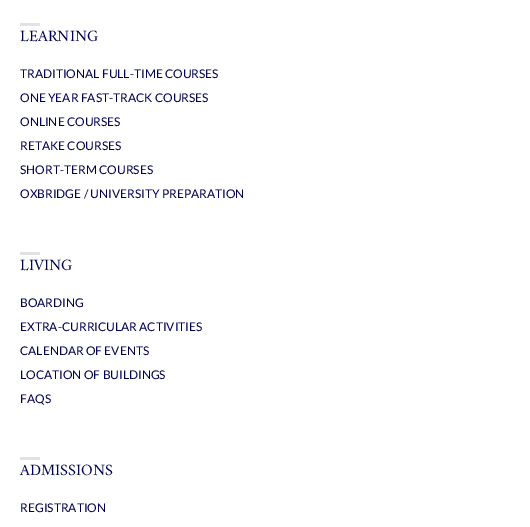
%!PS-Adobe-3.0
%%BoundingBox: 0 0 530 527
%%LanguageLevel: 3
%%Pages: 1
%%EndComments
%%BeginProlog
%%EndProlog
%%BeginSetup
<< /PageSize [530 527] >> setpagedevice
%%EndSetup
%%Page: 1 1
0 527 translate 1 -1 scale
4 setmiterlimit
1 setgray
0 0 530 527 rectfill
0.886 setgray
20 23 20 3 rectfill
20 252 20 3 rectfill
20 457 20 3 rectfill
/Amiri-Regular [16 0 0 -16 0 0] selectfont
0 0 0.314 setrgbcolor
20 41 moveto (LEARNING) show
/Lato-Regular [12 0 0 -12 0 0] selectfont
20 78 moveto (TRADITIONAL FULL-TIME COURSES) show
20 102 moveto (ONE YEAR FAST-TRACK COURSES) show
20 126 moveto (ONLINE COURSES) show
20 150 moveto (RETAKE COURSES) show
20 174 moveto (SHORT-TERM COURSES) show
20 198 moveto (OXBRIDGE / UNIVERSITY PREPARATION) show
/Amiri-Regular [16 0 0 -16 0 0] selectfont
20 270 moveto (LIVING) show
/Lato-Regular [12 0 0 -12 0 0] selectfont
20 307 moveto (BOARDING) show
20 331 moveto (EXTRA-CURRICULAR ACTIVITIES) show
20 355 moveto (CALENDAR OF EVENTS) show
20 379 moveto (LOCATION OF BUILDINGS) show
20 403 moveto (FAQS) show
/Amiri-Regular [16 0 0 -16 0 0] selectfont
20 475 moveto (ADMISSIONS) show
/Lato-Regular [12 0 0 -12 0 0] selectfont
20 512 moveto (REGISTRATION) show
showpage
%%EOF
